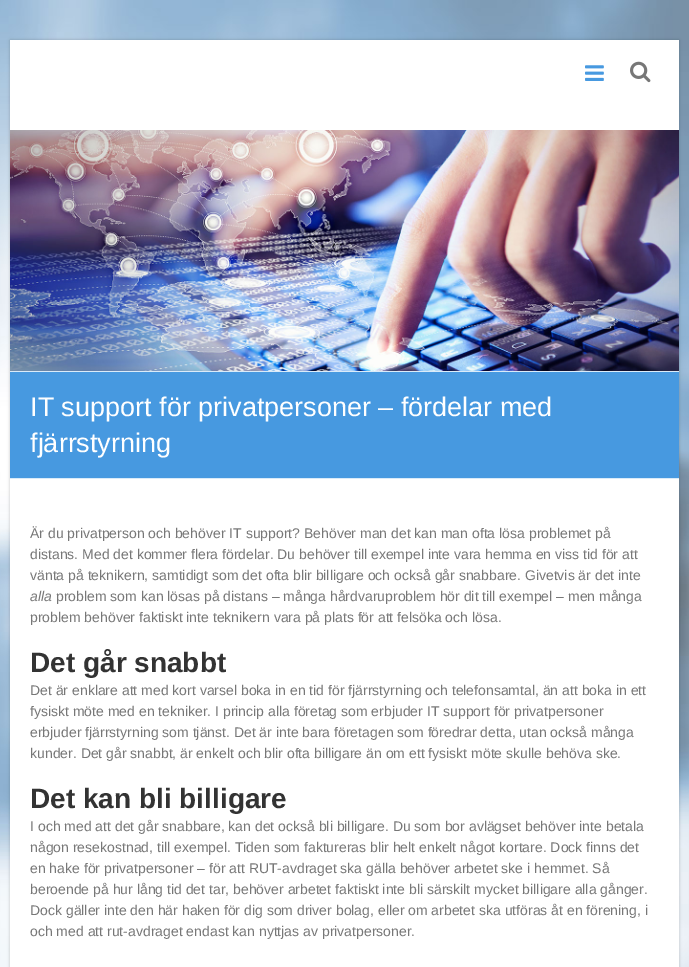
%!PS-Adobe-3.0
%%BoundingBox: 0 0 689 967
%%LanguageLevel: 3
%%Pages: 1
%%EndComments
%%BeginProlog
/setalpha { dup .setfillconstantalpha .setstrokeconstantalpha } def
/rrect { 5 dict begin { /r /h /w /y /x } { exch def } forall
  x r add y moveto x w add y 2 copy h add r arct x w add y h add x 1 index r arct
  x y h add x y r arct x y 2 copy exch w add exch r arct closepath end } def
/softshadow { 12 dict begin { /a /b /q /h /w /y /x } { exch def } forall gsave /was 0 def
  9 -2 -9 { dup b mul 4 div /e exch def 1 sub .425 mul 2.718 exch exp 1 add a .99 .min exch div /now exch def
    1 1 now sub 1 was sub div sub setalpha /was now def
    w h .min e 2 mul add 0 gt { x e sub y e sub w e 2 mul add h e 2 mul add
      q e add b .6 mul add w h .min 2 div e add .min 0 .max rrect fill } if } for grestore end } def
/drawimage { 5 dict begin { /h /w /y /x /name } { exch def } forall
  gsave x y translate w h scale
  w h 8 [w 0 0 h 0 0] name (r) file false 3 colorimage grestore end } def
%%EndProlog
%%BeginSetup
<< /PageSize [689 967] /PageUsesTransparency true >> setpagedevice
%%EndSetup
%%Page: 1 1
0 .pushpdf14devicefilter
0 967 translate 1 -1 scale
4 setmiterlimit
1 setgray
0 0 689 967 rectfill
(images/1.raw) 0 0 689 967 drawimage
0 setgray
10 40 669 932 0 1.5 0.2 softshadow
1 setgray
10 40 669 927 rectfill
(images/2.raw) 585 65 19 16 drawimage
(images/3.raw) 630 61 21 22 drawimage
(images/4.raw) 10 130 669 241 drawimage
0.278 0.6 0.878 setrgbcolor
10 372 669 106 rectfill
0.855 0.922 0.976 setrgbcolor
10 371 669 1 rectfill
10 478 669 1 rectfill
/LiberationSans-Regular [27 0 0 -27 0 0] selectfont
1 setgray
30 416 moveto (IT support för privatpersoner – fördelar med) show
30 452 moveto (fjärrstyrning) show
/LiberationSans-Regular [14 0 0 -14 0 0] selectfont
0.467 setgray
30 538 moveto (Är du privatperson och behöver IT support? Behöver man det kan man ofta lösa problemet på) show
30 559 moveto (distans. Med det kommer flera fördelar. Du behöver till exempel inte vara hemma en viss tid för att) show
30 580 moveto (vänta på teknikern, samtidigt som det ofta blir billigare och också går snabbare. Givetvis är det inte) show
/LiberationSans-Italic [14 0 0 -14 0 0] selectfont
30 601 moveto (alla) show
/LiberationSans-Regular [14 0 0 -14 0 0] selectfont
56 601 moveto (problem som kan lösas på distans – många hårdvaruproblem hör dit till exempel – men många) show
30 622 moveto (problem behöver faktiskt inte teknikern vara på plats för att felsöka och lösa.) show
/LiberationSans-Bold [28 0 0 -28 0 0] selectfont
0.2 setgray
30 672 moveto (Det går snabbt) show
/LiberationSans-Regular [14 0 0 -14 0 0] selectfont
0.467 setgray
30 695 moveto (Det är enklare att med kort varsel boka in en tid för fjärrstyrning och telefonsamtal, än att boka in ett) show
30 716 moveto (fysiskt möte med en tekniker. I princip alla företag som erbjuder IT support för privatpersoner) show
30 737 moveto (erbjuder fjärrstyrning som tjänst. Det är inte bara företagen som föredrar detta, utan också många) show
30 758 moveto (kunder. Det går snabbt, är enkelt och blir ofta billigare än om ett fysiskt möte skulle behöva ske.) show
/LiberationSans-Bold [28 0 0 -28 0 0] selectfont
0.2 setgray
30 808 moveto (Det kan bli billigare) show
/LiberationSans-Regular [14 0 0 -14 0 0] selectfont
0.467 setgray
30 831 moveto (I och med att det går snabbare, kan det också bli billigare. Du som bor avlägset behöver inte betala) show
30 852 moveto (någon resekostnad, till exempel. Tiden som faktureras blir helt enkelt något kortare. Dock finns det) show
30 873 moveto (en hake för privatpersoner – för att RUT-avdraget ska gälla behöver arbetet ske i hemmet. Så) show
30 894 moveto (beroende på hur lång tid det tar, behöver arbetet faktiskt inte bli särskilt mycket billigare alla gånger.) show
30 915 moveto (Dock gäller inte den här haken för dig som driver bolag, eller om arbetet ska utföras åt en förening, i) show
30 936 moveto (och med att rut-avdraget endast kan nyttjas av privatpersoner.) show
.poppdf14devicefilter showpage
%%EOF
